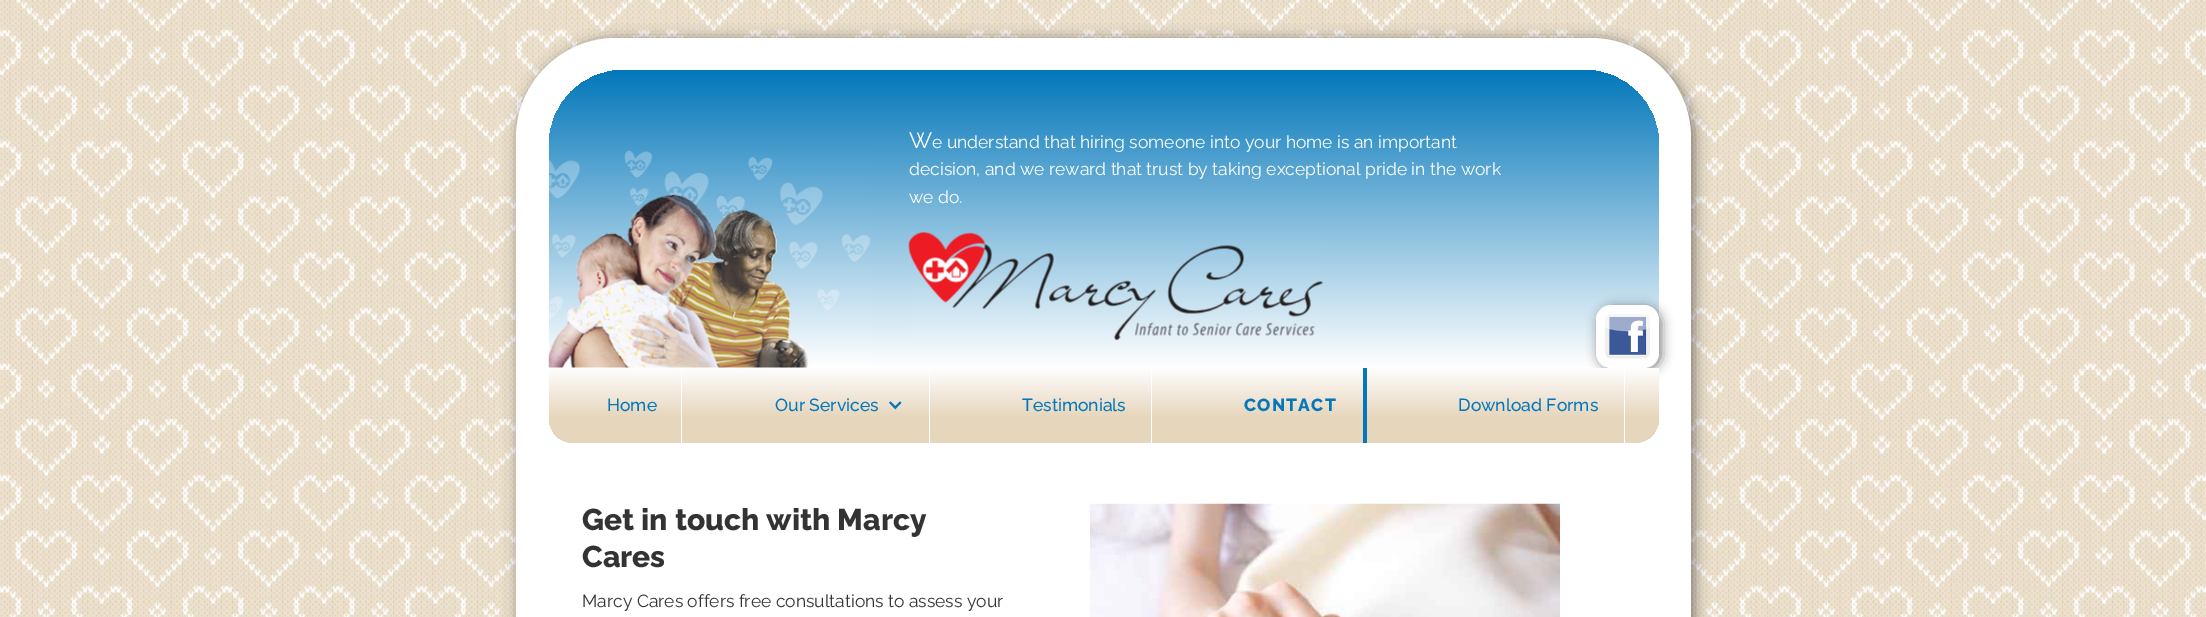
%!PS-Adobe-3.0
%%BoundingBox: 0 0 2206 617
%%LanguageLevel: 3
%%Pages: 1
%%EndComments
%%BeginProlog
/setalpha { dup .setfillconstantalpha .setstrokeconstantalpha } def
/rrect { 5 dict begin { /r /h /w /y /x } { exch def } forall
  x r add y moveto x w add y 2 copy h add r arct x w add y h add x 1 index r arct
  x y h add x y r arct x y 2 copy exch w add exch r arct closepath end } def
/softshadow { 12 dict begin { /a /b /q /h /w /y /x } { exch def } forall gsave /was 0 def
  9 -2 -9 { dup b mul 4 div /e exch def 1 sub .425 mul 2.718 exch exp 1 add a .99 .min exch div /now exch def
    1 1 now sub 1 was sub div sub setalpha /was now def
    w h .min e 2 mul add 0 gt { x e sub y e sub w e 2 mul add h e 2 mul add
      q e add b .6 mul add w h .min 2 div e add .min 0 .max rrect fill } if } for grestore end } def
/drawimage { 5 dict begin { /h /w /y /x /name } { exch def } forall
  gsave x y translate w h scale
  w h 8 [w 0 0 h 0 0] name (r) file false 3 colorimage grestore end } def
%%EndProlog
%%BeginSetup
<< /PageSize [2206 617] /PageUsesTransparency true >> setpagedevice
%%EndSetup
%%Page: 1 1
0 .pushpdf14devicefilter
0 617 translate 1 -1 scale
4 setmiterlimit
1 setgray
0 0 2206 617 rectfill
(images/1.raw) 0 0 2206 617 drawimage
0 setgray
518 39 1177 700 101 7 0.43 softshadow
1 setgray
newpath 616 38 moveto 1591 38 lineto 1646 38 1691 83 1691 138 curveto 1691 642 lineto 1691 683.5 1657.5 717 1616 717 curveto 591 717 lineto 549.5 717 516 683.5 516 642 curveto 516 138 lineto 516 83 561 38 616 38 curveto closepath fill
gsave newpath 624 70 moveto 1584 70 lineto 1625.5 70 1659 103.5 1659 145 curveto 1659 368 lineto 549 368 lineto 549 145 lineto 549 103.5 582.5 70 624 70 curveto closepath clip newpath
<< /ShadingType 2 /ColorSpace /DeviceRGB /Coords [1104 70 1104 368] /Extend [true true] /Function << /FunctionType 2 /Domain [0 1] /C0 [0.012 0.467 0.729] /C1 [1 1 1] /N 1 >> >> shfill grestore
(images/2.raw) 548 150 323 218 drawimage
(images/3.raw) 908 232 415 109 drawimage
0 setgray
1599 308 62 62 15 6 0.54 softshadow
1 setgray
1596 305 63 63 15 rrect fill
(images/4.raw) 1605 314 45 45 drawimage
gsave newpath 549 368 moveto 1659 368 lineto 1659 418 lineto 1659 432 1648 443 1634 443 curveto 574 443 lineto 560 443 549 432 549 418 curveto closepath clip newpath
<< /ShadingType 2 /ColorSpace /DeviceRGB /Coords [1104 367 1104 443] /Extend [true true] /Function << /FunctionType 3 /Domain [0 1] /Functions [<< /FunctionType 2 /Domain [0 1] /C0 [1 1 1] /C1 [0.902 0.839 0.737] /N 1 >> << /FunctionType 2 /Domain [0 1] /C0 [0.902 0.839 0.737] /C1 [0.902 0.839 0.737] /N 1 >>] /Bounds [0.66] /Encode [0 1 0 1] >> >> shfill grestore
681 368 1 75 rectfill
929 368 1 75 rectfill
(images/5.raw) 889 401 13 9 drawimage
1151 368 1 75 rectfill
0.012 0.467 0.729 setrgbcolor
1363 368 4 75 rectfill
1 setgray
1624 368 1 75 rectfill
(images/6.raw) 1090 503 470 114 drawimage
/Raleway-Regular [22 0 0 -22 0 0] selectfont
909 148 moveto (W) show
/Raleway-Regular [17.5 0 0 -17.5 0 0] selectfont
932 148 moveto (e understand that hiring someone into your home is an important) show
909 175 moveto (decision, and we reward that trust by taking exceptional pride in the work) show
909 203 moveto (we do.) show
/Raleway-Medium [17.5 0 0 -17.5 0 0] selectfont
0.012 0.467 0.729 setrgbcolor
607 411 moveto (Home) show
775 411 moveto (Our Services) show
1022 411 moveto (Testimonials) show
/Raleway-ExtraBold [17.5 0 0 -17.5 0 0] selectfont
1244 411 moveto 1.25 0 (CONTACT) ashow
/Raleway-Medium [17.5 0 0 -17.5 0 0] selectfont
1458 411 moveto (Download Forms) show
/Raleway-ExtraBold [30 0 0 -30 0 0] selectfont
0.2 setgray
582 530 moveto (Get in touch with Marcy) show
582 567 moveto (Cares) show
/Raleway-Regular [17.5 0 0 -17.5 0 0] selectfont
582 607 moveto (Marcy Cares offers free consultations to assess your) show
.poppdf14devicefilter showpage
%%EOF
